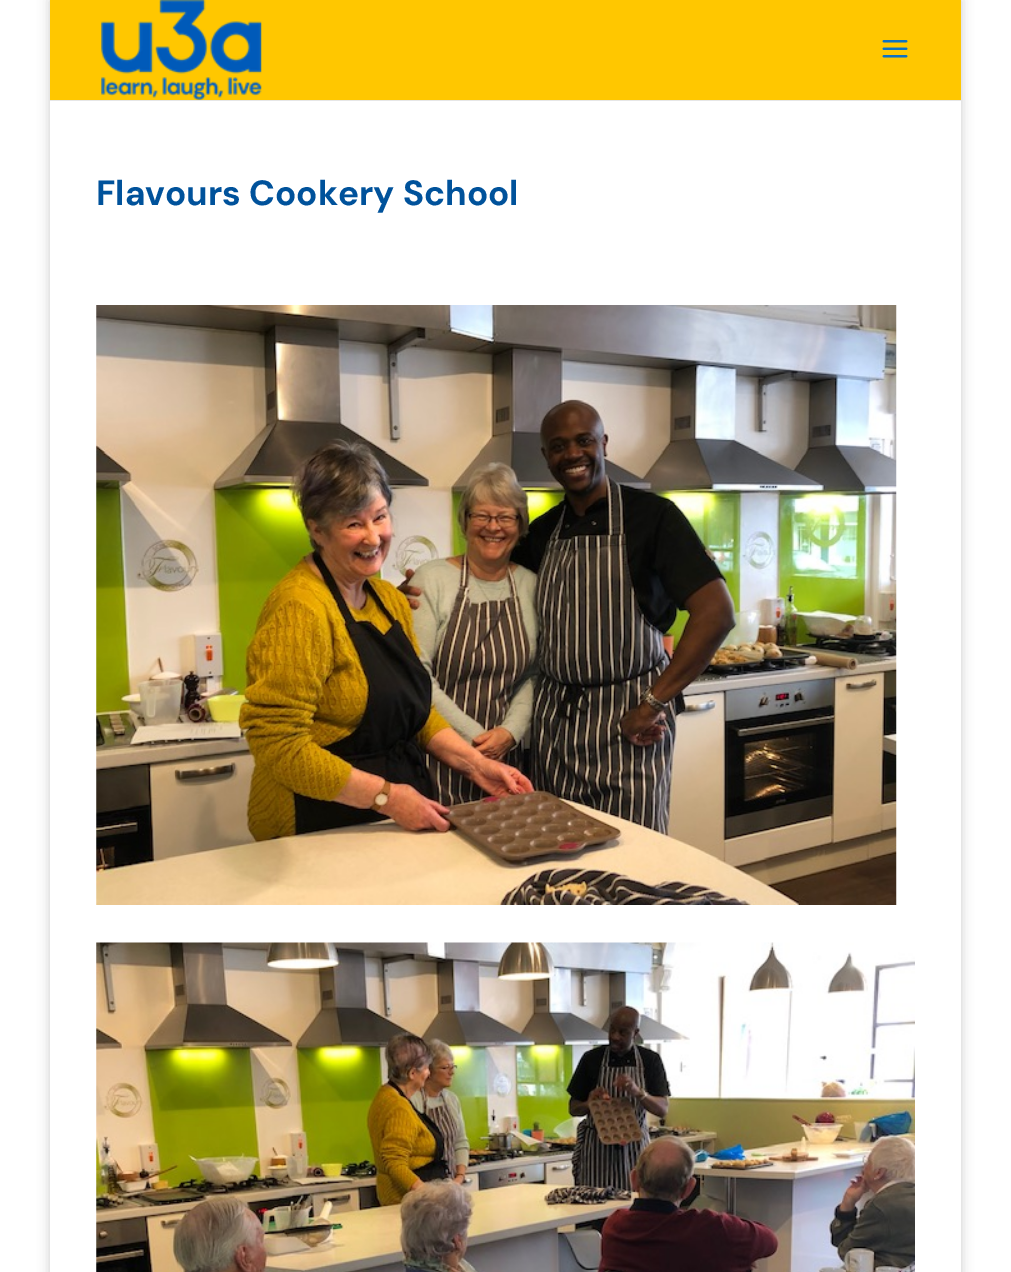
%!PS-Adobe-3.0
%%BoundingBox: 0 0 1011 1272
%%LanguageLevel: 3
%%Pages: 1
%%EndComments
%%BeginProlog
/setalpha { dup .setfillconstantalpha .setstrokeconstantalpha } def
/rrect { 5 dict begin { /r /h /w /y /x } { exch def } forall
  x r add y moveto x w add y 2 copy h add r arct x w add y h add x 1 index r arct
  x y h add x y r arct x y 2 copy exch w add exch r arct closepath end } def
/softshadow { 12 dict begin { /a /b /q /h /w /y /x } { exch def } forall gsave /was 0 def
  9 -2 -9 { dup b mul 4 div /e exch def 1 sub .425 mul 2.718 exch exp 1 add a .99 .min exch div /now exch def
    1 1 now sub 1 was sub div sub setalpha /was now def
    w h .min e 2 mul add 0 gt { x e sub y e sub w e 2 mul add h e 2 mul add
      q e add b .6 mul add w h .min 2 div e add .min 0 .max rrect fill } if } for grestore end } def
/drawimage { 5 dict begin { /h /w /y /x /name } { exch def } forall
  gsave x y translate w h scale
  w h 8 [w 0 0 h 0 0] name (r) file false 3 colorimage grestore end } def
%%EndProlog
%%BeginSetup
<< /PageSize [1011 1272] /PageUsesTransparency true >> setpagedevice
%%EndSetup
%%Page: 1 1
0 .pushpdf14devicefilter
0 1272 translate 1 -1 scale
4 setmiterlimit
1 setgray
0 0 1011 1272 rectfill
gsave
newpath 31 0 moveto 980 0 lineto 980 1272 lineto 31 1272 lineto closepath 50 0 moveto 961 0 lineto 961 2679 lineto 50 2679 lineto closepath eoclip newpath
0 setgray
50 0 911 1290 0 6 0.2 softshadow
grestore
0.902 setgray
50 100 911 1 rectfill
1 0.78 0 setrgbcolor
50 0 911 100 rectfill
(images/1.raw) 101 0 161 100 drawimage
(images/2.raw) 882 40 26 18 drawimage
(images/3.raw) 96 305 801 600 drawimage
(images/4.raw) 96 942 819 330 drawimage
/DMSans-Bold [35 0 0 -35 0 0] selectfont
0 0.322 0.608 setrgbcolor
96 205 moveto (Flavours Cookery School) show
.poppdf14devicefilter showpage
%%EOF
